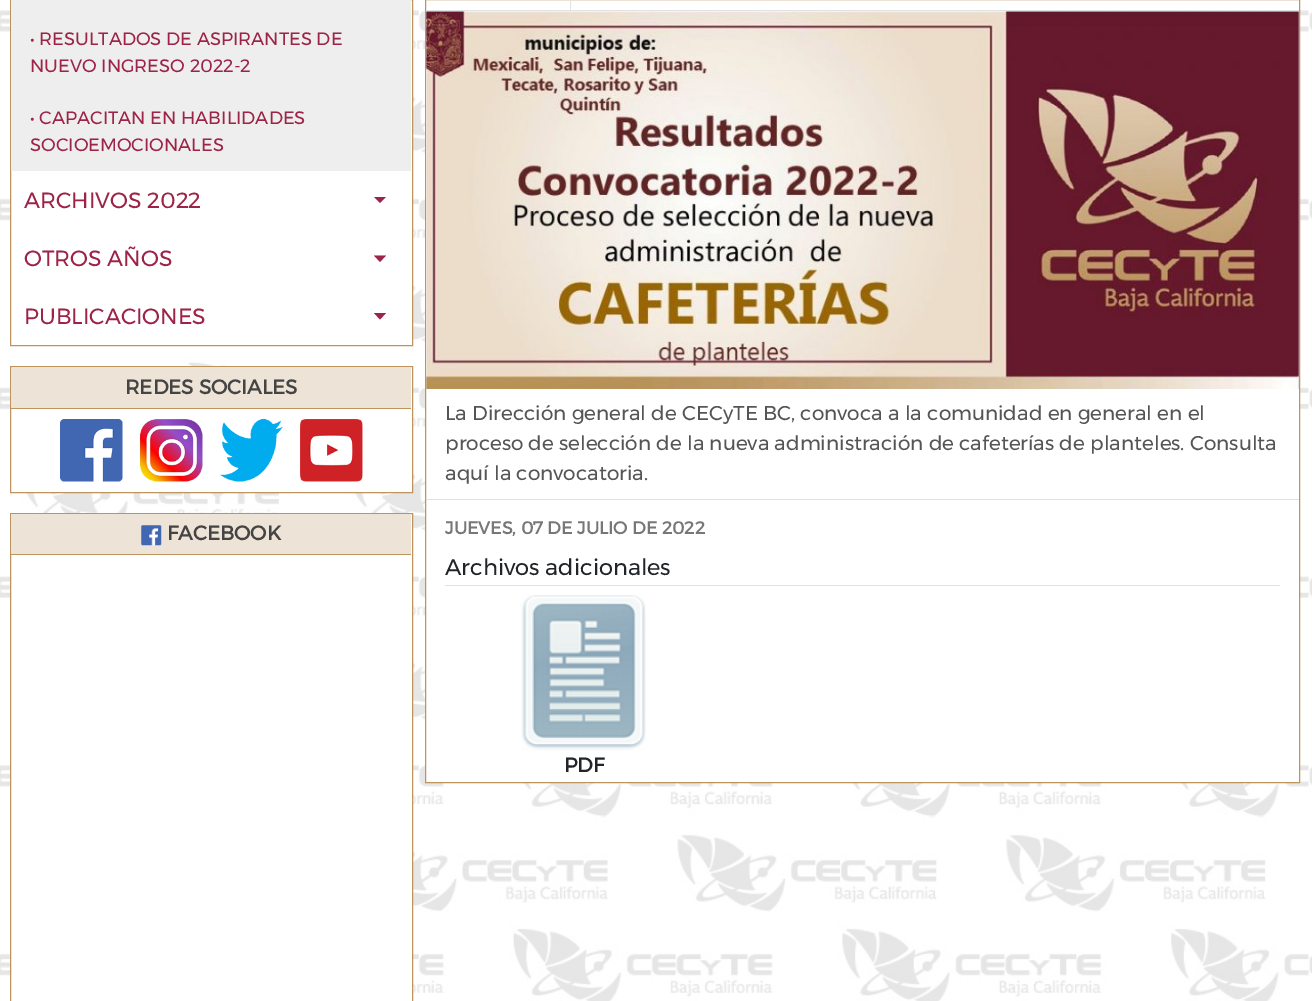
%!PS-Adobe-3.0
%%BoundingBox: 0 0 1312 1001
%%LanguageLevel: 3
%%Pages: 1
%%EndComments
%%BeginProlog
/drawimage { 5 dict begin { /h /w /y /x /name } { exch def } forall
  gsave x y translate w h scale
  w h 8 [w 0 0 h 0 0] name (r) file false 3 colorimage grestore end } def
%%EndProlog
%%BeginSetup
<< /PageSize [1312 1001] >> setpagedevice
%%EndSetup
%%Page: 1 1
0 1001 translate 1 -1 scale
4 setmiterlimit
1 setgray
0 0 1312 1001 rectfill
(images/1.raw) 0 0 1312 1001 drawimage
newpath 10.5 -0.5 moveto 412.5 -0.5 lineto 412.5 345.5 lineto 10.5 345.5 lineto closepath gsave fill grestore
0.741 0.58 0.369 setrgbcolor
stroke
0.933 setgray
11 0 400 171 rectfill
0.616 0.141 0.282 setrgbcolor
newpath 374 197 moveto 386 197 lineto 380 203 lineto closepath fill
newpath 374 255.5 moveto 386 255.5 lineto 380 262 lineto closepath fill
newpath 374 313 moveto 386 313 lineto 380 319.5 lineto closepath fill
1 setgray
newpath 10.5 366.5 moveto 412.5 366.5 lineto 412.5 492.5 lineto 10.5 492.5 lineto closepath gsave fill grestore
0.741 0.58 0.369 setrgbcolor
stroke
0.929 0.89 0.839 setrgbcolor
11 368 400 40 rectfill
0.741 0.58 0.369 setrgbcolor
11 408 400 1 rectfill
(images/2.raw) 60 419 63 63 drawimage
(images/3.raw) 140 419 63 63 drawimage
(images/4.raw) 220 419 63 63 drawimage
(images/5.raw) 300 419 63 63 drawimage
1 setgray
newpath 10.5 513.5 moveto 412.5 513.5 lineto 412.5 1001.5 lineto 10.5 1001.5 lineto closepath gsave fill grestore
0.741 0.58 0.369 setrgbcolor
stroke
0.929 0.89 0.839 setrgbcolor
11 514 400 40 rectfill
0.741 0.58 0.369 setrgbcolor
11 554 400 1 rectfill
(images/6.raw) 141 525 21 21 drawimage
1 setgray
newpath 425.5 -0.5 moveto 1299.5 -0.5 lineto 1299.5 782.5 lineto 425.5 782.5 lineto closepath gsave fill grestore
0.741 0.58 0.369 setrgbcolor
stroke
0.871 0.886 0.902 setrgbcolor
570 0 1 11 rectfill
426 10 873 1 rectfill
(images/7.raw) 426 11 873 378 drawimage
426 499 873 1 rectfill
445 585 835 1 rectfill
(images/8.raw) 521 595 125 155 drawimage
/Montserrat-Regular [18 0 0 -18 0 0] selectfont
0.616 0.141 0.282 setrgbcolor
30 45 moveto (• RESULTADOS DE ASPIRANTES DE) show
30 72 moveto (NUEVO INGRESO 2022-2) show
30 124 moveto (• CAPACITAN EN HABILIDADES) show
30 151 moveto (SOCIOEMOCIONALES) show
/Montserrat-Regular [22 0 0 -22 0 0] selectfont
24 208 moveto (ARCHIVOS 2022) show
24 266 moveto (OTROS AÑOS) show
24 324 moveto (PUBLICACIONES) show
/Montserrat-Bold [20 0 0 -20 0 0] selectfont
0.267 setgray
125 394 moveto (REDES SOCIALES) show
167 540 moveto (FACEBOOK) show
/Montserrat-Regular [20 0 0 -20 0 0] selectfont
0.333 setgray
445 420 moveto (La Dirección general de CECyTE BC, convoca a la comunidad en general en el) show
445 450 moveto (proceso de selección de la nueva administración de cafeterías de planteles. Consulta) show
445 480 moveto (aquí la convocatoria.) show
/Montserrat-Bold [17.5 0 0 -17.5 0 0] selectfont
0.467 setgray
445 534 moveto (JUEVES, 07 DE JULIO DE 2022) show
/Montserrat-Regular [22.5 0 0 -22.5 0 0] selectfont
0.129 0.145 0.161 setrgbcolor
445 575 moveto (Archivos adicionales) show
/Montserrat-Bold [20 0 0 -20 0 0] selectfont
564 772 moveto (PDF) show
showpage
%%EOF
